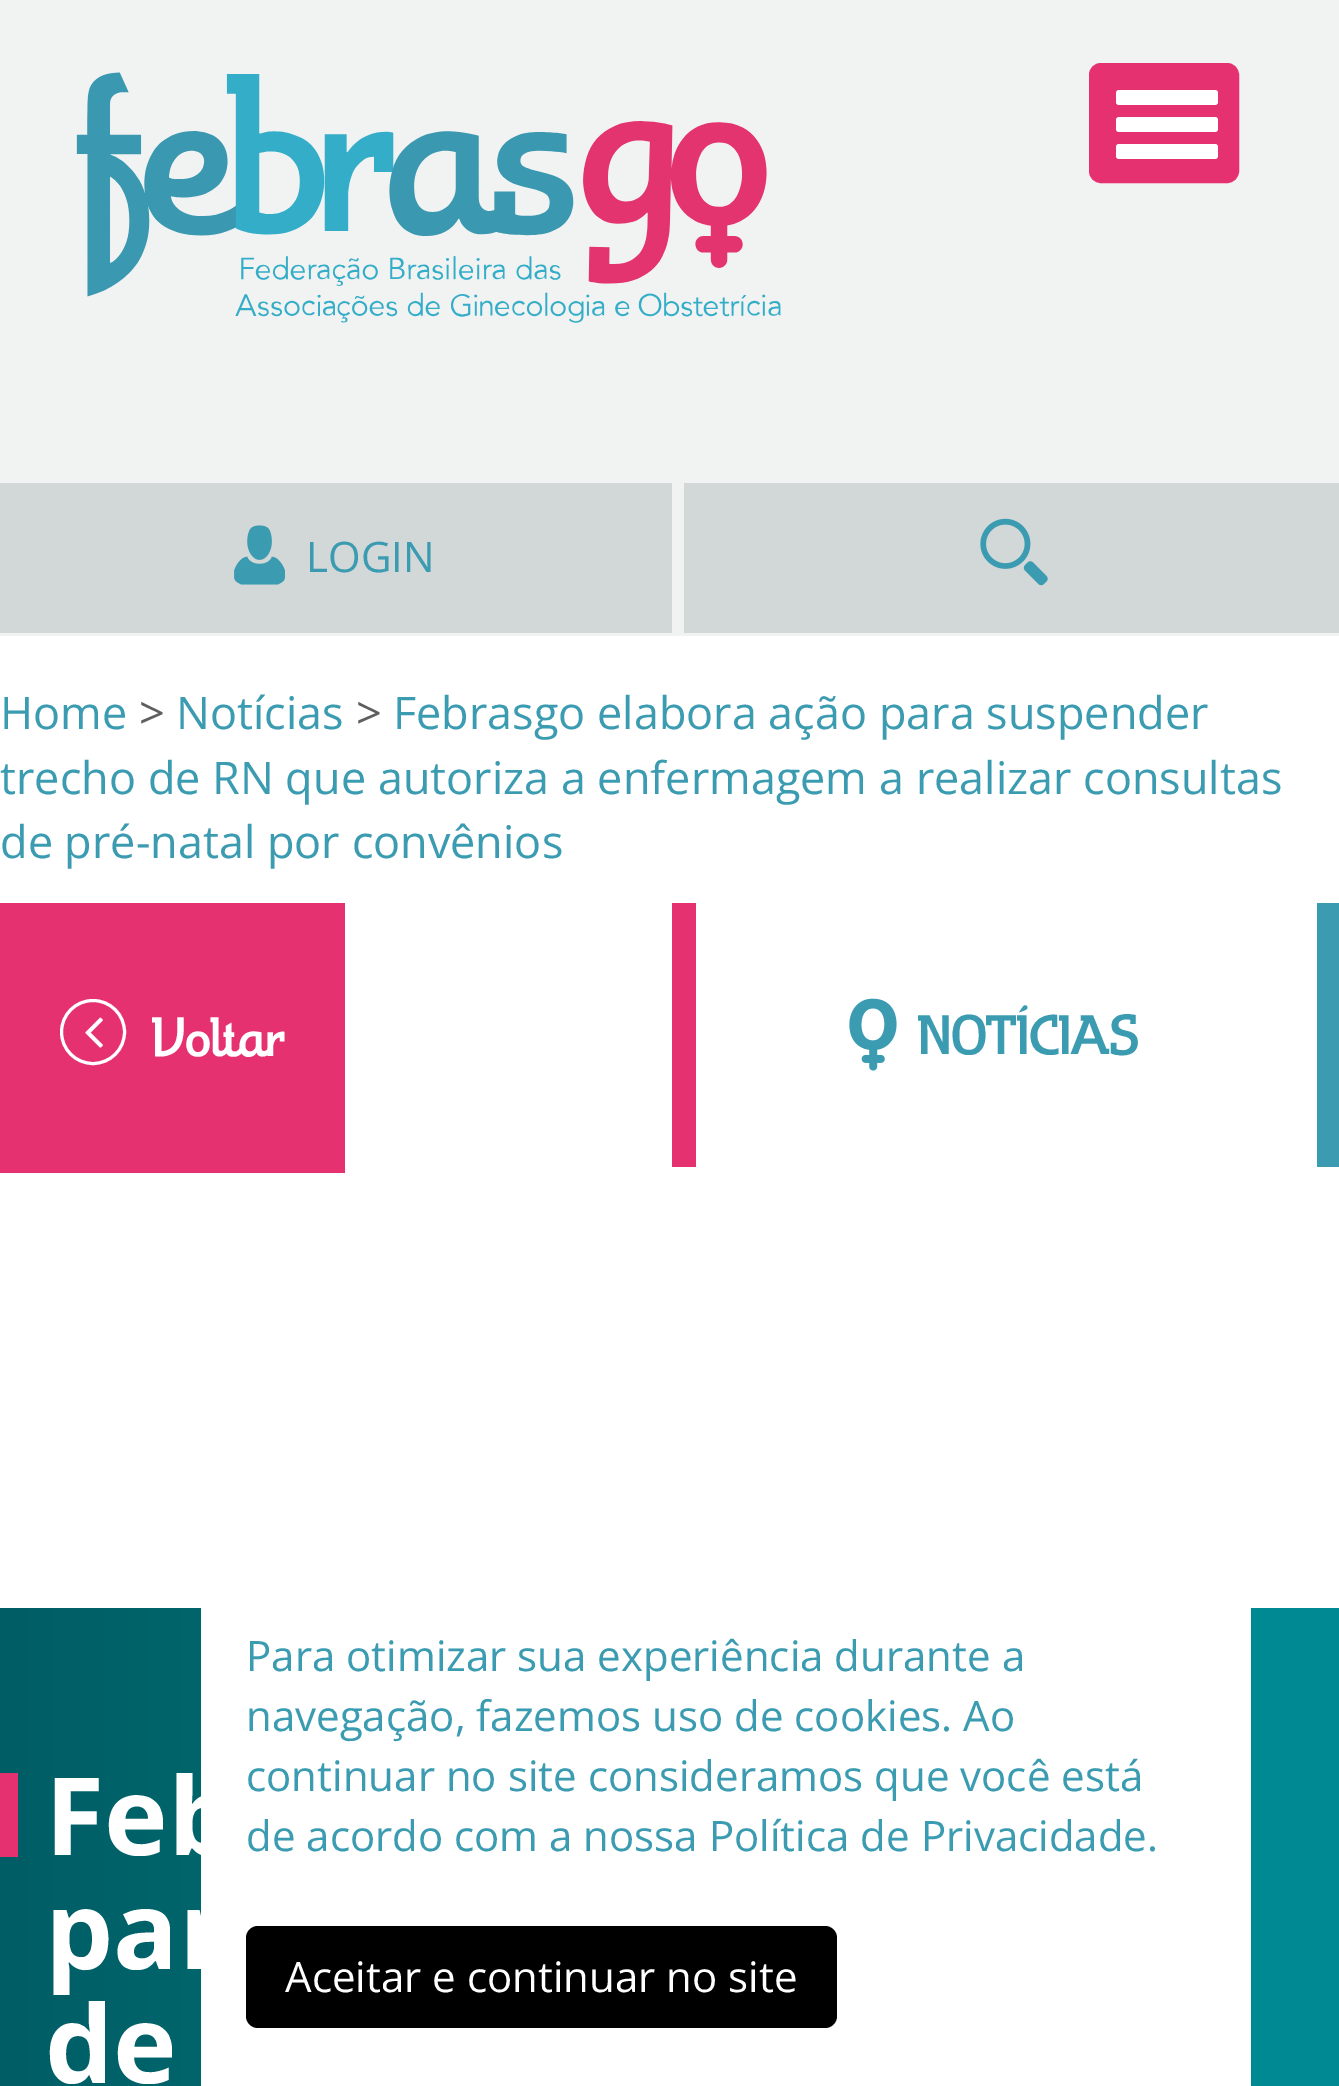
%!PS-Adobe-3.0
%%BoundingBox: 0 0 1339 2086
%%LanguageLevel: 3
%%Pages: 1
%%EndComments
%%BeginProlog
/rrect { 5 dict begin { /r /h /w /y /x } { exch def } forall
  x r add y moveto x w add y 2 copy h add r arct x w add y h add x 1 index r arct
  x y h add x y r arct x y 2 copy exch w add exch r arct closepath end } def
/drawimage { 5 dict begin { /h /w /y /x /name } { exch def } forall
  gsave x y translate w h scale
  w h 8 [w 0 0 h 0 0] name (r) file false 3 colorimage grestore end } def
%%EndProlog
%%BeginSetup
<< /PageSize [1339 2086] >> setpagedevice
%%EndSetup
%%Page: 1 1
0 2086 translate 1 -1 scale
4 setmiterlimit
1 setgray
0 0 1339 2086 rectfill
0.945 0.949 0.949 setrgbcolor
0 0 1339 636 rectfill
(images/1.raw) 76 72 705 251 drawimage
0.902 0.192 0.443 setrgbcolor
1090.5 64.5 147 117 10.5 rrect gsave fill grestore
3 setlinewidth
stroke
1 setgray
1116 90 102 15 3 rrect fill
1116 117 102 15 3 rrect fill
1116 144 102 15 3 rrect fill
0.824 0.843 0.843 setrgbcolor
0 483 672 150 rectfill
(images/2.raw) 234 525 51 60 drawimage
684 483 655 150 rectfill
(images/3.raw) 980 518 68 68 drawimage
0.902 0.192 0.443 setrgbcolor
0 903 345 270 rectfill
1 setgray
newpath 93 1032 31.5 0 360 arc closepath stroke
(images/4.raw) 85 1017 18 31 drawimage
0.227 0.608 0.694 setrgbcolor
1317 903 22 264 rectfill
0.902 0.192 0.443 setrgbcolor
672 903 24 264 rectfill
(images/5.raw) 849 998 48 73 drawimage
gsave newpath 0 1608 moveto 1339 1608 lineto 1339 2086 lineto 0 2086 lineto closepath clip newpath
<< /ShadingType 2 /ColorSpace /DeviceRGB /Coords [0 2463 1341 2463] /Extend [true true] /Function << /FunctionType 3 /Domain [0 1] /Functions [<< /FunctionType 2 /Domain [0 1] /C0 [0 0.365 0.4] /C1 [0 0.431 0.447] /N 1 >> << /FunctionType 2 /Domain [0 1] /C0 [0 0.431 0.447] /C1 [0 0.533 0.576] /N 1 >> << /FunctionType 2 /Domain [0 1] /C0 [0 0.533 0.576] /C1 [0 0.533 0.576] /N 1 >>] /Bounds [0.33 0.66] /Encode [0 1 0 1 0 1] >> >> shfill grestore
0 1773 18 84 rectfill
1 setgray
newpath 225 1566 moveto 1227 1566 lineto 1240.5 1566 1251 1576.5 1251 1590 curveto 1251 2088 lineto 201 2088 lineto 201 1590 lineto 201 1576.5 211.5 1566 225 1566 curveto closepath fill
0 setgray
246 1926 591 102 12 rrect fill
/OpenSans-Regular [42 0 0 -42 0 0] selectfont
0.227 0.608 0.694 setrgbcolor
306 572 moveto (LOGIN) show
/OpenSans-Regular [45 0 0 -45 0 0] selectfont
0 729 moveto (Home) show
0.369 setgray
139 729 moveto (>) show
0.227 0.608 0.694 setrgbcolor
176 729 moveto (Notícias) show
0.369 setgray
356 729 moveto (>) show
0.227 0.608 0.694 setrgbcolor
393 729 moveto (Febrasgo elabora ação para suspender) show
0 794 moveto (trecho de RN que autoriza a enfermagem a realizar consultas) show
0 858 moveto (de pré-natal por convênios) show
/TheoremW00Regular-Regular [54 0 0 -54 0 0] selectfont
1 setgray
152 1056 moveto (Voltar) show
0.227 0.608 0.694 setrgbcolor
918 1054 moveto (NOTÍCIAS) show
/OpenSans-Bold [108 0 0 -108 0 0] selectfont
1 setgray
45 1855 moveto (Feb) show
45 1969 moveto (par) show
45 2083 moveto (de) show
/OpenSans-Regular [42 0 0 -42 0 0] selectfont
0.227 0.608 0.694 setrgbcolor
246 1671 moveto (Para otimizar sua experiência durante a) show
246 1731 moveto (navegação, fazemos uso de cookies. Ao) show
246 1791 moveto (continuar no site consideramos que você está) show
246 1851 moveto (de acordo com a nossa Política de Privacidade.) show
1 setgray
285 1992 moveto (Aceitar e continuar no site) show
showpage
%%EOF
